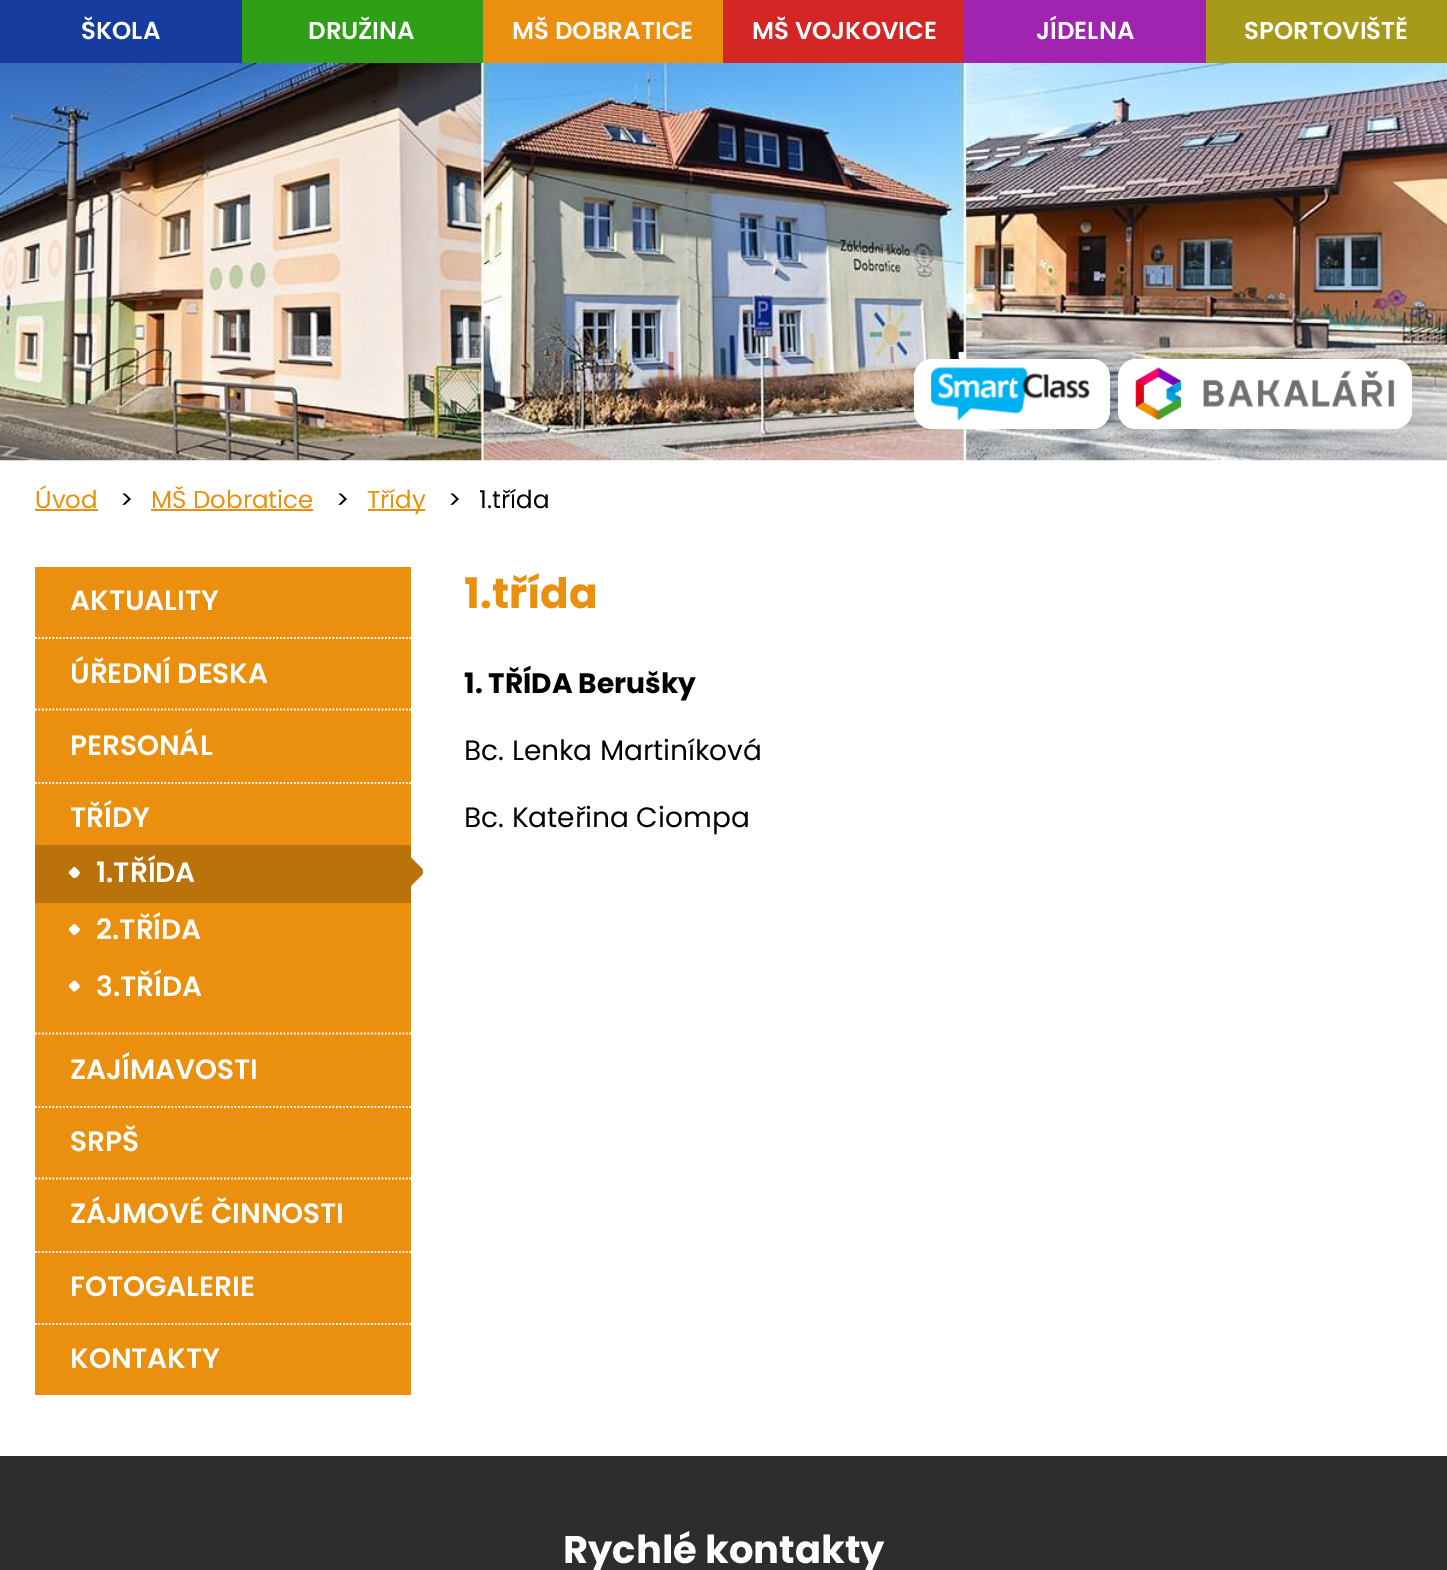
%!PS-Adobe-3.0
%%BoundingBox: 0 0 1447 1570
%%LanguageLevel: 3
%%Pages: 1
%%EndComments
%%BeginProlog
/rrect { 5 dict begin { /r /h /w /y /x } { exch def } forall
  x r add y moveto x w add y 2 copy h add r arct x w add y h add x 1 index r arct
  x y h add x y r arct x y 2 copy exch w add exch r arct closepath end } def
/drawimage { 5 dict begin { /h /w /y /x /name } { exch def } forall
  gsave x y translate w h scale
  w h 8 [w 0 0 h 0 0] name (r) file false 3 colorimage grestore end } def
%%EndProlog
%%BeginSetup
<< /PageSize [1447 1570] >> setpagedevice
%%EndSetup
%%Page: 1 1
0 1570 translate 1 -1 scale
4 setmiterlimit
1 setgray
0 0 1447 1570 rectfill
0.082 0.235 0.62 setrgbcolor
0 0 242 63 rectfill
0.18 0.624 0.09 setrgbcolor
242 0 241 63 rectfill
0.918 0.561 0.055 setrgbcolor
483 0 240 63 rectfill
0.835 0.149 0.149 setrgbcolor
723 0 241 63 rectfill
0.627 0.141 0.69 setrgbcolor
964 0 242 63 rectfill
0.655 0.6 0.098 setrgbcolor
1206 0 241 63 rectfill
(images/1.raw) 0 63 1447 398 drawimage
1 setgray
914 359 196 70 18 rrect fill
(images/2.raw) 931 367 159 53 drawimage
1118 359 294 70 18 rrect fill
(images/3.raw) 1135 367 260 53 drawimage
0.918 0.561 0.055 setrgbcolor
35 509 63 2 rectfill
151 509 162 2 rectfill
368 509 57 2 rectfill
35 567 376 828 rectfill
1 setgray
1.8 setlinewidth
[1.75 1.75] 0 setdash
newpath 35 638 moveto 411 638 lineto stroke
newpath 35 709.5 moveto 411 709.5 lineto stroke
newpath 35 783 moveto 411 783 lineto stroke
0.729 0.447 0.043 setrgbcolor
35 845 376 58 rectfill
1 setgray
newpath 75.5 867.5 moveto 79.5 872 lineto 80.5 873.5 78.5 875 77.5 876 curveto 76.5 877 75 879 73 877.5 curveto 69 873.5 lineto 68.5 871.5 70.5 870.5 71.5 869.5 curveto 72.5 868.5 74 866 75.5 867.5 curveto closepath fill
0.729 0.447 0.043 setrgbcolor
newpath 411.5 858 moveto 421.5 868 lineto 423.5 870 423.5 873.5 421.5 875.5 curveto 411.5 885.5 lineto 409.5 887.5 406.5 887.5 404 885.5 curveto 394.5 875.5 lineto 392.5 873.5 392.5 870 394.5 868 curveto 404 858 lineto 406.5 856 409.5 856 411.5 858 curveto closepath fill
1 setgray
newpath 75.5 924.5 moveto 79.5 928.5 lineto 80.5 930.5 78.5 931.5 77.5 932.5 curveto 76.5 933.5 75 936 73 934.5 curveto 69 930 lineto 68.5 928.5 70.5 927 71.5 926.5 curveto 72.5 925.5 74 923 75.5 924.5 curveto closepath fill
newpath 75.5 981 moveto 79.5 985.5 lineto 80.5 987 78.5 988 77.5 989 curveto 76.5 990 75 992.5 73 991 curveto 69 986.5 lineto 68.5 985 70.5 984 71.5 983 curveto 72.5 982 74 979.5 75.5 981 curveto closepath fill
newpath 35 1033.5 moveto 411 1033.5 lineto stroke
newpath 35 1107 moveto 411 1107 lineto stroke
newpath 35 1178.5 moveto 411 1178.5 lineto stroke
newpath 35 1252 moveto 411 1252 lineto stroke
newpath 35 1324 moveto 411 1324 lineto stroke
0.176 setgray
0 1456 1447 114 rectfill
/Poppins-SemiBold [24.5 0 0 -24.5 0 0] selectfont
1 setgray
81 39 moveto (ŠKOLA) show
308 39 moveto (DRUŽINA) show
512 39 moveto (MŠ DOBRATICE) show
752 39 moveto (MŠ VOJKOVICE) show
1036 39 moveto (JÍDELNA) show
1244 39 moveto (SPORTOVIŠTĚ) show
/Poppins-Regular [24.5 0 0 -24.5 0 0] selectfont
0.918 0.561 0.055 setrgbcolor
35 508 moveto (Úvod) show
0 setgray
120 508 moveto (>) show
0.918 0.561 0.055 setrgbcolor
151 508 moveto (MŠ Dobratice) show
0 setgray
336 508 moveto (>) show
0.918 0.561 0.055 setrgbcolor
367 508 moveto (Třídy) show
0 setgray
448 508 moveto (>) show
479 508 moveto (1.třída) show
/Poppins-SemiBold [28 0 0 -28 0 0] selectfont
1 setgray
70 610 moveto (AKTUALITY) show
70 683 moveto (ÚŘEDNÍ DESKA) show
70 755 moveto (PERSONÁL) show
70 827 moveto (TŘÍDY) show
96 882 moveto (1.TŘÍDA) show
96 939 moveto (2.TŘÍDA) show
96 996 moveto (3.TŘÍDA) show
70 1079 moveto (ZAJÍMAVOSTI) show
70 1151 moveto (SRPŠ) show
70 1223 moveto (ZÁJMOVÉ ČINNOSTI) show
70 1296 moveto (FOTOGALERIE) show
70 1368 moveto (KONTAKTY) show
/Poppins-Bold [42 0 0 -42 0 0] selectfont
0.918 0.561 0.055 setrgbcolor
464 608 moveto (1.třída) show
/Poppins-Bold [28 0 0 -28 0 0] selectfont
0 setgray
464 693 moveto (1. TŘÍDA Berušky) show
/Poppins-Regular [28 0 0 -28 0 0] selectfont
464 760 moveto (Bc. Lenka Martiníková) show
464 827 moveto (Bc. Kateřina Ciompa) show
/Poppins-Bold [38.5 0 0 -38.5 0 0] selectfont
1 setgray
563 1563 moveto (Rychlé kontakty) show
showpage
%%EOF
